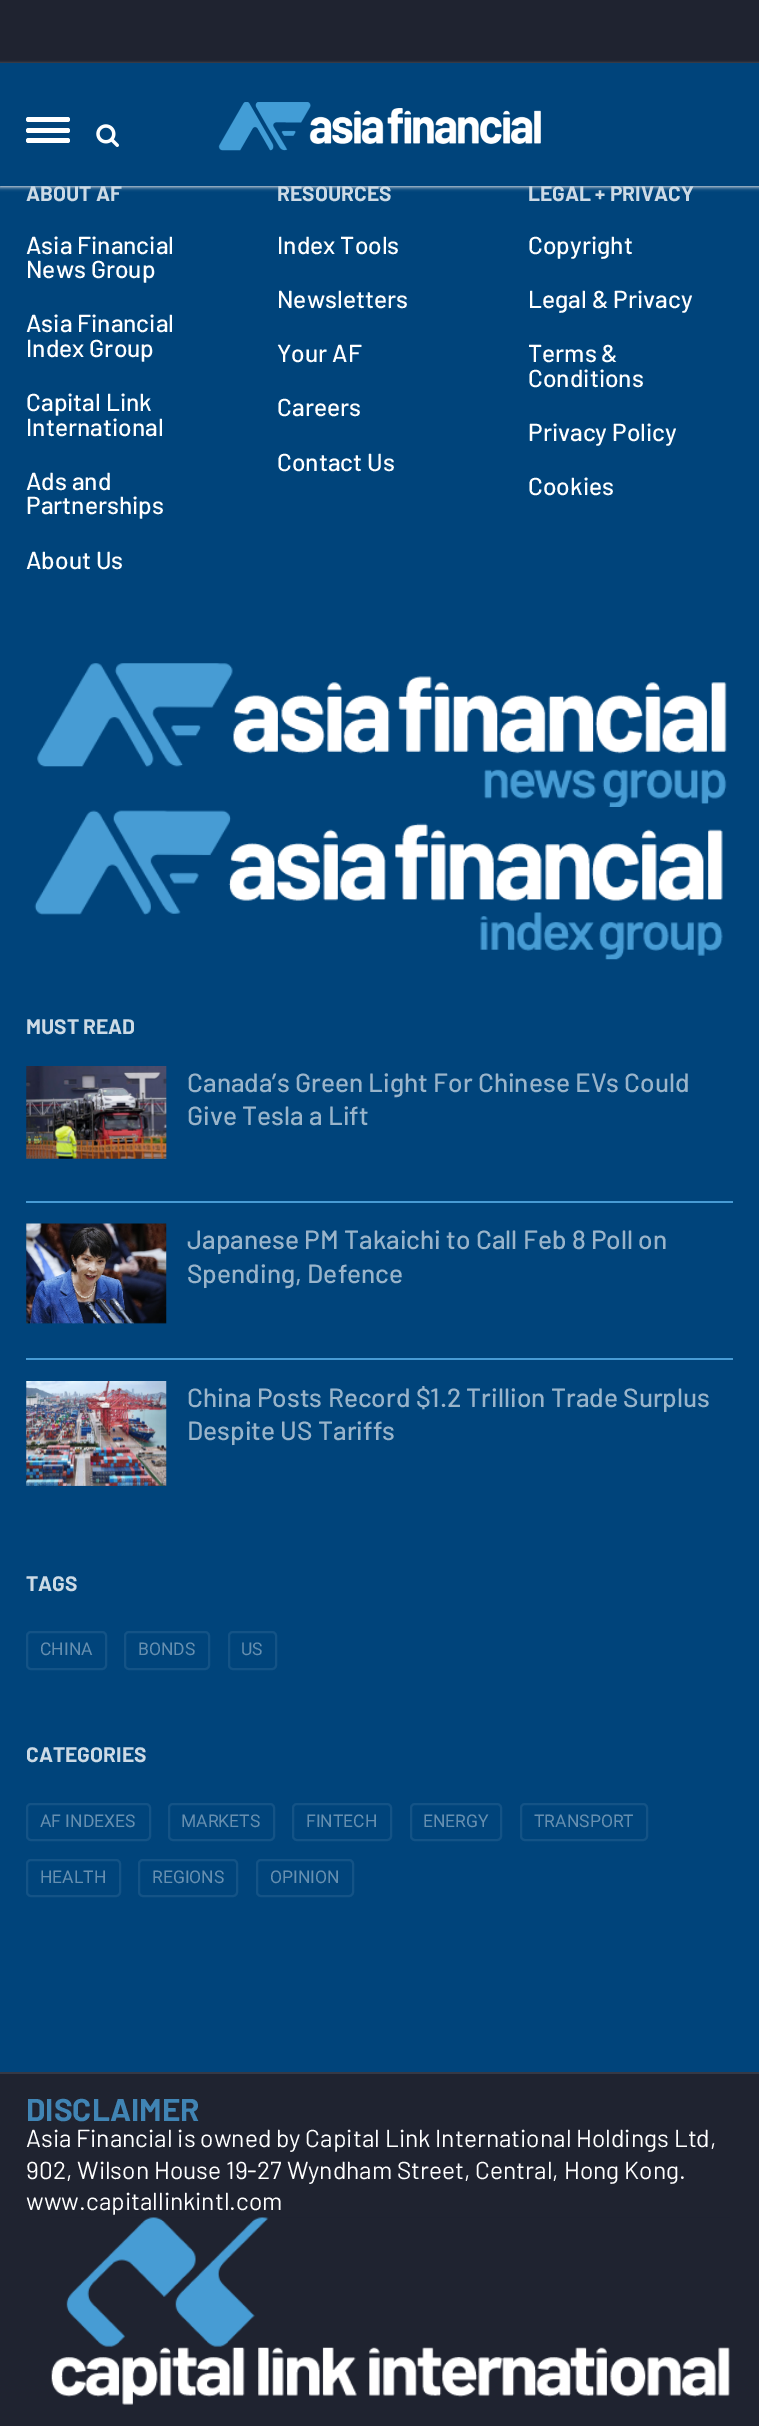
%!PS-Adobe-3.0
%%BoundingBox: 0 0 759 2426
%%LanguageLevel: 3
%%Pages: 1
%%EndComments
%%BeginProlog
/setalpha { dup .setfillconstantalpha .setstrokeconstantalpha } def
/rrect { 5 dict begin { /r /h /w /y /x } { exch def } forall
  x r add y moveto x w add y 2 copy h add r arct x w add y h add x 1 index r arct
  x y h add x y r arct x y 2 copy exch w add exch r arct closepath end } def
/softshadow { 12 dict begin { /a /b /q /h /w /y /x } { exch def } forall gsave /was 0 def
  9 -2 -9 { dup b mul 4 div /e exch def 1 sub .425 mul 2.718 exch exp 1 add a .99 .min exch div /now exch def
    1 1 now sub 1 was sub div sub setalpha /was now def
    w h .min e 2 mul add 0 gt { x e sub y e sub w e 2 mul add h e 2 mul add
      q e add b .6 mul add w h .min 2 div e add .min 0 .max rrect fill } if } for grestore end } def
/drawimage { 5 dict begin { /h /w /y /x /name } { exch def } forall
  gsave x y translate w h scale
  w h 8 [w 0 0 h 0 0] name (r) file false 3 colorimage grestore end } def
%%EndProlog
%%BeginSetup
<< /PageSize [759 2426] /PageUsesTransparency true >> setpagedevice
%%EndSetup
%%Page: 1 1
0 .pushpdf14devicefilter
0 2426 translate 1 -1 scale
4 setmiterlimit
0 0.267 0.482 setrgbcolor
0 0 759 2426 rectfill
0.122 0.137 0.188 setrgbcolor
0 0 759 63 rectfill
0.918 setgray
0 65 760 122 0 2 1 softshadow
0 0.267 0.482 setrgbcolor
0 63 759 123 rectfill
1 setgray
26 117 44 5 2.5 rrect fill
26 128 44 5 2.5 rrect fill
26 138 44 5 2.5 rrect fill
(images/1.raw) 96 124 23 23 drawimage
(images/2.raw) 218 102 323 49 drawimage
(images/3.raw) 37 663 690 144 drawimage
(images/4.raw) 34 810 689 150 drawimage
0.282 0.608 0.831 setrgbcolor
26 1201 707 2 rectfill
(images/5.raw) 26 1066 141 93 drawimage
26 1358 707 2 rectfill
(images/6.raw) 26 1223 141 101 drawimage
(images/7.raw) 26 1381 141 105 drawimage
0.078 0.325 0.525 setrgbcolor
2 setlinewidth
27 1632 79 37 4 rrect stroke
125 1632 84 37 4 rrect stroke
229 1632 47 37 4 rrect stroke
27 1804 123 36 4 rrect stroke
169 1804 105 36 4 rrect stroke
293 1804 98 36 4 rrect stroke
411 1804 90 36 4 rrect stroke
521 1804 126 36 4 rrect stroke
27 1860 93 36 4 rrect stroke
139 1860 98 36 4 rrect stroke
257 1860 96 36 4 rrect stroke
0.122 0.137 0.188 setrgbcolor
0 2074 759 352 rectfill
0.208 0.224 0.271 setrgbcolor
0 2072 759 2 rectfill
(images/8.raw) 51 2217 679 188 drawimage
/Barlow-Bold [21 0 0 -21 0 0] selectfont
0.8 0.855 0.898 setrgbcolor
26 201 moveto (ABOUT AF) show
/Barlow-Medium [24.5 0 0 -24.5 0 0] selectfont
1 setgray
26 254 moveto (Asia Financial) show
26 278 moveto (News Group) show
26 332 moveto (Asia Financial) show
26 357 moveto (Index Group) show
26 411 moveto (Capital Link) show
26 436 moveto (International) show
26 490 moveto (Ads and) show
26 514 moveto (Partnerships) show
26 569 moveto (About Us) show
/Barlow-Bold [21 0 0 -21 0 0] selectfont
0.8 0.855 0.898 setrgbcolor
277 201 moveto (RESOURCES) show
/Barlow-Medium [24.5 0 0 -24.5 0 0] selectfont
1 setgray
277 254 moveto (Index Tools) show
277 308 moveto (Newsletters) show
277 362 moveto (Your AF) show
277 416 moveto (Careers) show
277 471 moveto (Contact Us) show
/Barlow-Bold [21 0 0 -21 0 0] selectfont
0.8 0.855 0.898 setrgbcolor
528 201 moveto (LEGAL + PRIVACY) show
/Barlow-Medium [24.5 0 0 -24.5 0 0] selectfont
1 setgray
528 254 moveto (Copyright) show
528 308 moveto (Legal & Privacy) show
528 362 moveto (Terms &) show
528 387 moveto (Conditions) show
528 441 moveto (Privacy Policy) show
528 495 moveto (Cookies) show
/Barlow-Bold [21 0 0 -21 0 0] selectfont
0.8 0.855 0.898 setrgbcolor
26 1034 moveto (MUST READ) show
/Barlow-Medium [26.25 0 0 -26.25 0 0] selectfont
0.6 0.706 0.792 setrgbcolor
187 1092 moveto (Canada’s Green Light For Chinese EVs Could) show
187 1125 moveto (Give Tesla a Lift) show
187 1249 moveto (Japanese PM Takaichi to Call Feb 8 Poll on) show
187 1283 moveto (Spending, Defence) show
187 1407 moveto (China Posts Record $1.2 Trillion Trade Surplus) show
187 1440 moveto (Despite US Tariffs) show
/Barlow-Bold [21 0 0 -21 0 0] selectfont
0.8 0.855 0.898 setrgbcolor
26 1591 moveto (TAGS) show
/Roboto-Regular [17.5 0 0 -17.5 0 0] selectfont
0.4 0.561 0.69 setrgbcolor
40 1655 moveto (CHINA) show
138 1655 moveto (BONDS) show
241 1655 moveto (US) show
/Barlow-Bold [21 0 0 -21 0 0] selectfont
0.8 0.855 0.898 setrgbcolor
26 1762 moveto (CATEGORIES) show
/Roboto-Regular [17.5 0 0 -17.5 0 0] selectfont
0.4 0.561 0.69 setrgbcolor
40 1827 moveto (AF INDEXES) show
181 1827 moveto (MARKETS) show
306 1827 moveto (FINTECH) show
423 1827 moveto (ENERGY) show
534 1827 moveto (TRANSPORT) show
40 1883 moveto (HEALTH) show
152 1883 moveto (REGIONS) show
270 1883 moveto (OPINION) show
/Barlow-Bold [31.5 0 0 -31.5 0 0] selectfont
0.251 0.518 0.706 setrgbcolor
26 2121 moveto (DISCLAIMER) show
/Barlow-Regular [24.5 0 0 -24.5 0 0] selectfont
1 setgray
26 2147 moveto (Asia Financial is owned by Capital Link International Holdings Ltd,) show
26 2179 moveto (902, Wilson House 19-27 Wyndham Street, Central, Hong Kong.) show
26 2210 moveto (www.capitallinkintl.com) show
.poppdf14devicefilter showpage
%%EOF
